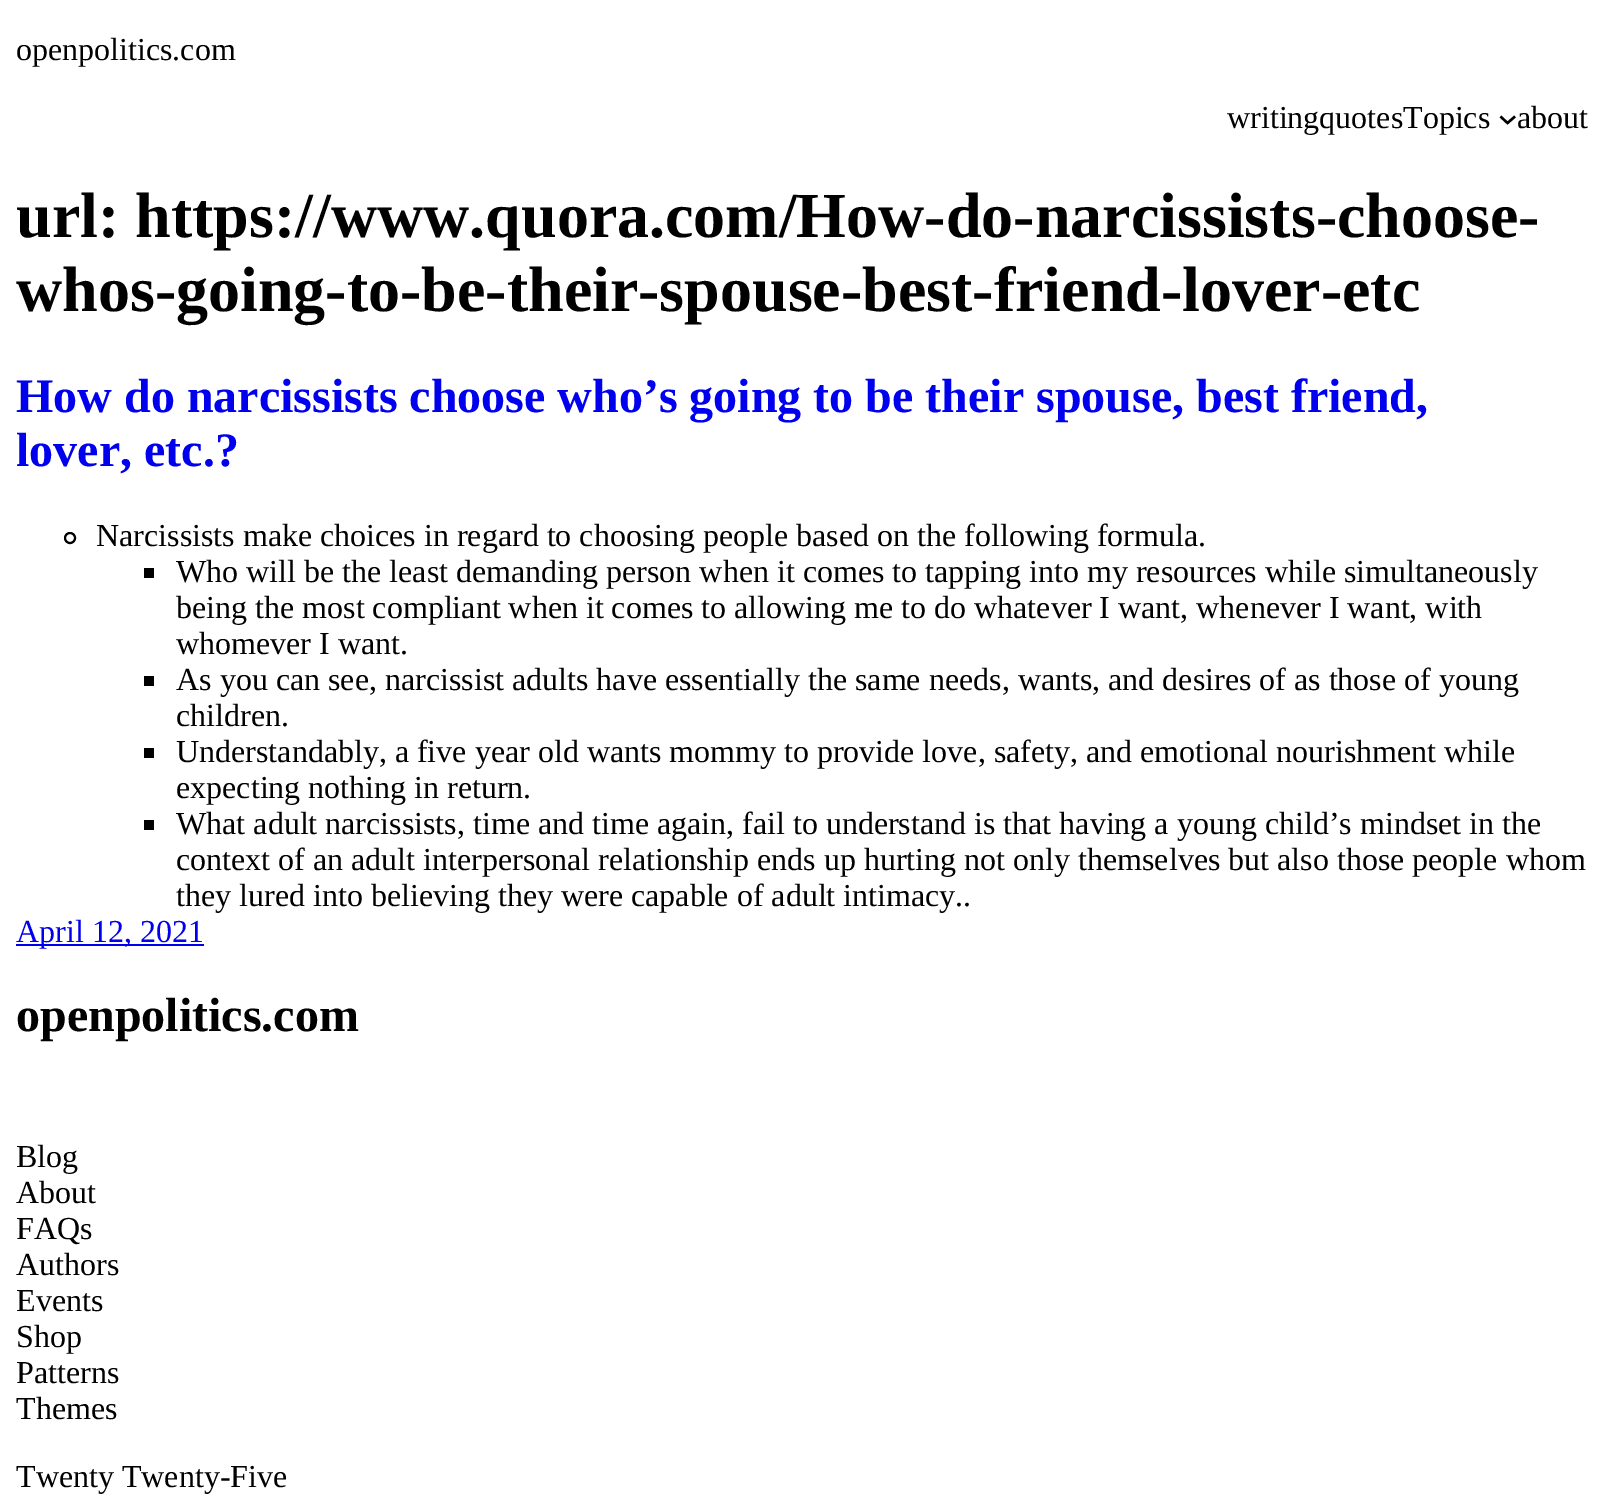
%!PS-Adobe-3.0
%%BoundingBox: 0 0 1604 1502
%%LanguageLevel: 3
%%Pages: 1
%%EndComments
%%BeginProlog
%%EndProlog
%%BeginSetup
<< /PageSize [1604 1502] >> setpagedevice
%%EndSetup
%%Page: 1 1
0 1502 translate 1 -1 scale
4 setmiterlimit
1 setgray
0 0 1604 1502 rectfill
0 setgray
2.4 setlinewidth
newpath 1500.5 116.5 moveto 1507.5 123 lineto 1515 116.5 lineto stroke
2 setlinewidth
newpath 70 538 5 0 360 arc closepath stroke
144 568 10 10 rectfill
144 676 10 10 rectfill
144 748 10 10 rectfill
144 820 10 10 rectfill
0 0 0.933 setrgbcolor
16 944 188 2 rectfill
/LiberationSerif-Regular [32 0 0 -32 0 0] selectfont
0 setgray
16 60 moveto (openpolitics.com) show
1227 128 moveto (writingquotesTopics) show
1517 128 moveto (about) show
/LiberationSerif-Bold [64 0 0 -64 0 0] selectfont
16 237 moveto (url: https://www.quora.com/How-do-narcissists-choose-) show
16 311 moveto (whos-going-to-be-their-spouse-best-friend-lover-etc) show
/LiberationSerif-Bold [48 0 0 -48 0 0] selectfont
0 0 0.933 setrgbcolor
16 412 moveto (How do narcissists choose who’s going to be their spouse, best friend,) show
16 466 moveto (lover, etc.?) show
/LiberationSerif-Regular [32 0 0 -32 0 0] selectfont
0 setgray
96 546 moveto (Narcissists make choices in regard to choosing people based on the following formula.) show
176 582 moveto (Who will be the least demanding person when it comes to tapping into my resources while simultaneously) show
176 618 moveto (being the most compliant when it comes to allowing me to do whatever I want, whenever I want, with) show
176 654 moveto (whomever I want.) show
176 690 moveto (As you can see, narcissist adults have essentially the same needs, wants, and desires of as those of young) show
176 726 moveto (children.) show
176 762 moveto (Understandably, a five year old wants mommy to provide love, safety, and emotional nourishment while) show
176 798 moveto (expecting nothing in return.) show
176 834 moveto (What adult narcissists, time and time again, fail to understand is that having a young child’s mindset in the) show
176 870 moveto (context of an adult interpersonal relationship ends up hurting not only themselves but also those people whom) show
176 906 moveto (they lured into believing they were capable of adult intimacy..) show
0 0 0.933 setrgbcolor
16 942 moveto (April 12, 2021) show
/LiberationSerif-Bold [48 0 0 -48 0 0] selectfont
0 setgray
16 1031 moveto (openpolitics.com) show
/LiberationSerif-Regular [32 0 0 -32 0 0] selectfont
16 1167 moveto (Blog) show
16 1203 moveto (About) show
16 1239 moveto (FAQs) show
16 1275 moveto (Authors) show
16 1311 moveto (Events) show
16 1347 moveto (Shop) show
16 1383 moveto (Patterns) show
16 1419 moveto (Themes) show
16 1487 moveto (Twenty Twenty-Five) show
showpage
%%EOF
